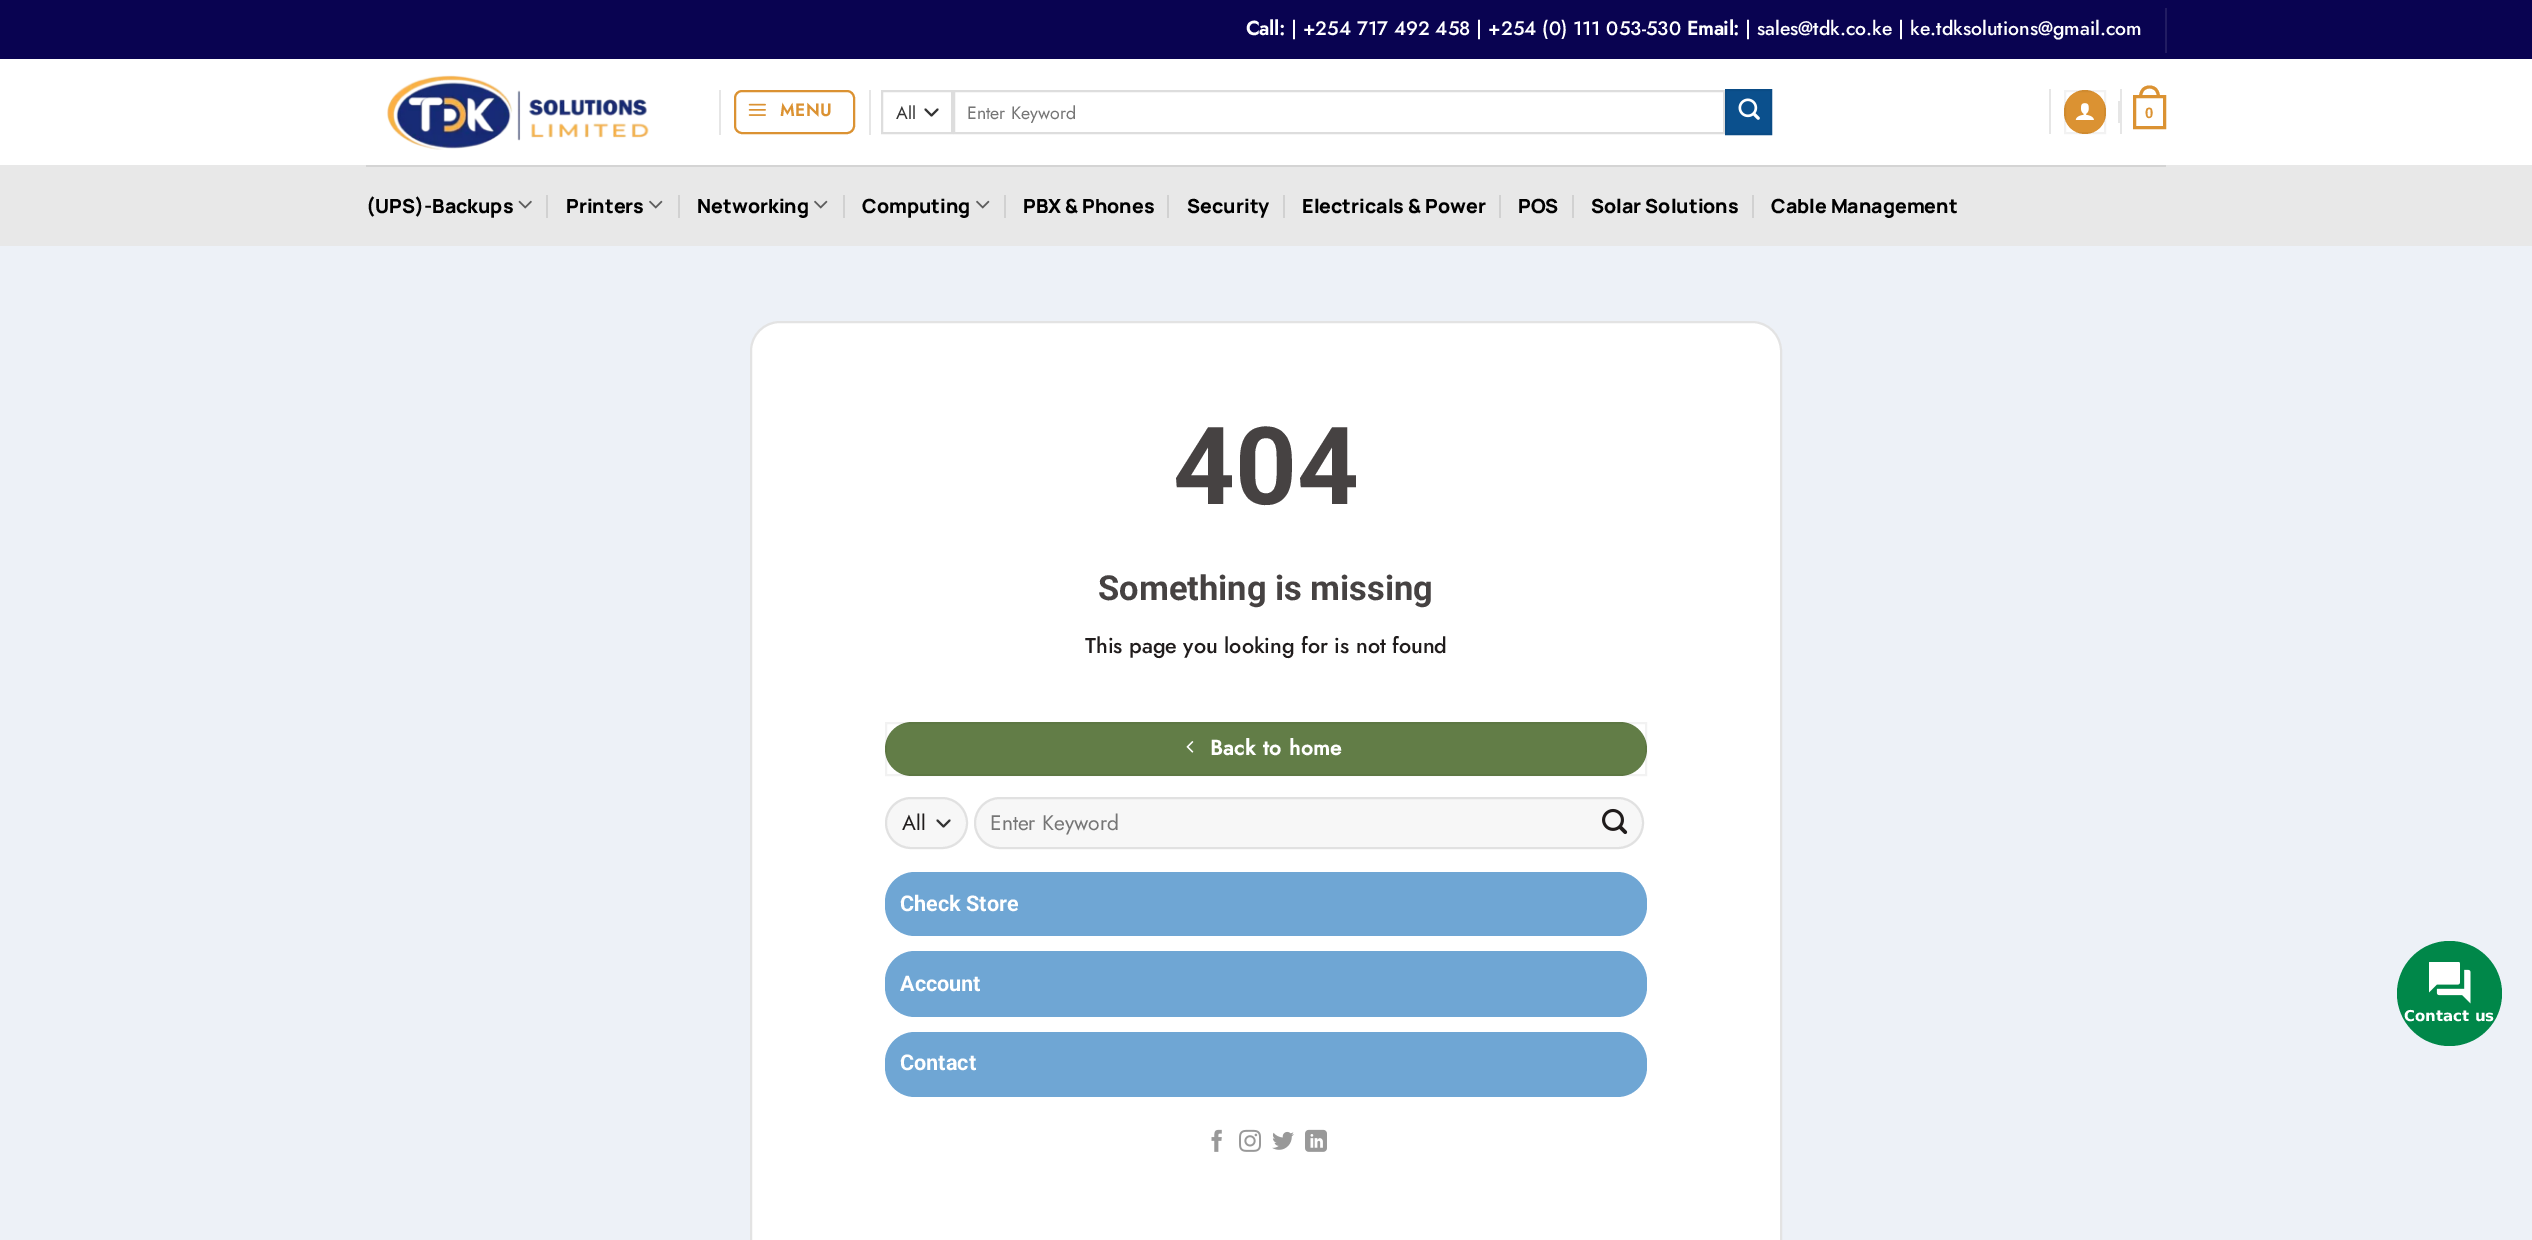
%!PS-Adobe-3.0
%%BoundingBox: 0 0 2532 1240
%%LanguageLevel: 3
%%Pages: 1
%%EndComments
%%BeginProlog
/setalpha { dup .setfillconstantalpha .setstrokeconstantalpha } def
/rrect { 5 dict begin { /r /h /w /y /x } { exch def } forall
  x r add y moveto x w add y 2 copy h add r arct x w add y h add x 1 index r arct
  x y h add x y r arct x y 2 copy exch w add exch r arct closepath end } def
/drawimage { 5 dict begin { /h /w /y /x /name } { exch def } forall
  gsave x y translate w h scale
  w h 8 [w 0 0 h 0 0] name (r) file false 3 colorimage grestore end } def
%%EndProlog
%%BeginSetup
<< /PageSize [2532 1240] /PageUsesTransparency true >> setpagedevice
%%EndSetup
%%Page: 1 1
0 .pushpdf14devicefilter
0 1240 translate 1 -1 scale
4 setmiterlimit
1 setgray
0 0 2532 1240 rectfill
0.035 0.012 0.318 setrgbcolor
0 0 2532 59 rectfill
0.133 0.11 0.384 setrgbcolor
2165 8 2 45 rectfill
(images/1.raw) 387 75 262 75 drawimage
0.902 setgray
719 90 2 45 rectfill
0.859 0.573 0.196 setrgbcolor
2 setlinewidth
735 91 119 42 7 rrect stroke
(images/2.raw) 748 103 18 13 drawimage
0.902 setgray
869 90 2 45 rectfill
0.2 setgray
1 setlinecap
1 setlinejoin
newpath 925.5 109.5 moveto 931.5 115.5 lineto 937.5 109.5 lineto stroke
0.867 setgray
0 setlinecap
0 setlinejoin
882 91 70 42 rectstroke
954 91 770 42 rectstroke
0.043 0.314 0.553 setrgbcolor
newpath 1726 90 moveto 1771 90 lineto 1771 134 lineto 1726 134 lineto closepath gsave fill grestore
0.039 0.298 0.525 setrgbcolor
stroke
(images/3.raw) 1738 98 22 22 drawimage
0.902 setgray
2049 89 2 45 rectfill
0.859 0.573 0.196 setrgbcolor
2064 90 42 44 21 rrect fill
0.05 setalpha
0 setgray
2065 91 40 42 rectstroke
1 setalpha
(images/4.raw) 2075 103 19 17 drawimage
0.902 setgray
2120 89 2 45 rectfill
2118 101 2 22 rectfill
0.859 0.573 0.196 setrgbcolor
3 setlinewidth
2134.5 96.5 30 31 rectstroke
newpath 2149.5 85.5 moveto 2156.5 85.5 2160 91 2160 97.5 curveto 2139 97.5 lineto 2139 91 2142.5 85.5 2149.5 85.5 curveto closepath 2149.5 88.5 moveto 2155 88.5 2157 93 2157 97.5 curveto 2142 97.5 lineto 2142 93 2144 88.5 2149.5 88.5 curveto closepath eofill
0.91 setgray
0 165 2532 81 rectfill
0.831 setgray
366 165 1800 2 rectfill
(images/5.raw) 518 200 14 9 drawimage
0.82 setgray
546 195 2 23 rectfill
(images/6.raw) 649 200 14 9 drawimage
678 195 2 23 rectfill
(images/6.raw) 814 200 14 9 drawimage
843 195 2 23 rectfill
(images/6.raw) 976 200 14 9 drawimage
1004 195 2 23 rectfill
1167 195 2 23 rectfill
1283 195 2 23 rectfill
1499 195 2 23 rectfill
1572 195 2 23 rectfill
1752 195 2 23 rectfill
0.929 0.945 0.969 setrgbcolor
0 246 2532 994 rectfill
1 setgray
751 322 1030 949 29 rrect gsave fill grestore
0.89 setgray
2 setlinewidth
stroke
0.384 0.49 0.278 setrgbcolor
885 722 762 54 27 rrect fill
0.05 setalpha
0 setgray
886 723 760 52 rectstroke
1 setalpha
(images/7.raw) 1186 741 8 12 drawimage
0.969 setgray
885 797 83 52 26 rrect fill
0.2 setgray
1 setlinecap
1 setlinejoin
newpath 937.5 820.5 moveto 943.5 826.5 lineto 949.5 820.5 lineto stroke
0.09 setalpha
0 setgray
0 setlinecap
0 setlinejoin
886 798 81 50 25 rrect stroke
1 setalpha
0.969 setgray
974 797 670 52 26 rrect fill
0.09 setalpha
0 setgray
975 798 668 50 25 rrect stroke
1 setalpha
(images/8.raw) 1602 808 26 27 drawimage
0.435 0.651 0.831 setrgbcolor
885 872 762 64 30 rrect fill
885 951 762 66 30 rrect fill
885 1032 762 65 30 rrect fill
(images/9.raw) 1211 1129 11 23 drawimage
(images/10.raw) 1239 1129 22 23 drawimage
(images/11.raw) 1272 1131 22 19 drawimage
(images/12.raw) 1305 1129 22 23 drawimage
0 0.529 0.286 setrgbcolor
newpath 2449.5 993.5 52.5 0 360 arc closepath fill
(images/13.raw) 2429 962 42 42 drawimage
/Jost-Bold [19.5 0 0 -19.5 0 0] selectfont
1 setgray
1246 35 moveto (Call:) show
/Jost-Medium [19.5 0 0 -19.5 0 0] selectfont
1291 35 moveto (| +254 717 492 458 | +254 \(0\) 111 053-530) show
/Jost-Bold [19.5 0 0 -19.5 0 0] selectfont
1687 35 moveto (Email:) show
/Jost-Medium [19.5 0 0 -19.5 0 0] selectfont
1745 35 moveto (| sales@tdk.co.ke | ke.tdksolutions@gmail.com) show
/Jost-Bold [17 0 0 -17 0 0] selectfont
0.859 0.573 0.196 setrgbcolor
780 116 moveto 1 0 (MENU) ashow
/Jost-Regular [17.75 0 0 -17.75 0 0] selectfont
0.2 setgray
896 119 moveto (All) show
0.459 setgray
967 119 moveto (Enter Keyword) show
/LiberationSans-Bold [15 0 0 -15 0 0] selectfont
0.859 0.573 0.196 setrgbcolor
2145 118 moveto (0) show
/Manrope-ExtraBold [19.5 0 0 -19.5 0 0] selectfont
0 setgray
366 213 moveto (\(UPS\)-Backups) show
566 213 moveto (Printers) show
697 213 moveto (Networking) show
862 213 moveto (Computing) show
1023 213 moveto (PBX & Phones) show
1187 213 moveto (Security) show
1302 213 moveto (Electricals & Power) show
1518 213 moveto (POS) show
1591 213 moveto (Solar Solutions) show
1771 213 moveto (Cable Management) show
/Roboto-Bold [108 0 0 -108 0 0] selectfont
0.275 0.259 0.259 setrgbcolor
1173 504 moveto (404) show
/Roboto-Bold [34.5 0 0 -34.5 0 0] selectfont
1098 600 moveto (Something is missing) show
/Jost-Medium [21.6 0 0 -21.6 0 0] selectfont
0.125 0.11 0.11 setrgbcolor
1085 653 moveto (This page you looking for is not found) show
/Jost-Bold [21 0 0 -21 0 0] selectfont
1 setgray
1210 755 moveto 0.6 0 (Back to home) ashow
/Jost-Regular [21 0 0 -21 0 0] selectfont
0.125 0.11 0.11 setrgbcolor
902 830 moveto (All) show
0.459 setgray
990 830 moveto (Enter Keyword) show
/Roboto-Bold [21.6 0 0 -21.6 0 0] selectfont
1 setgray
900 911 moveto (Check Store) show
900 991 moveto (Account) show
900 1070 moveto (Contact) show
/DejaVuSans-Bold [15 0 0 -15 0 0] selectfont
2404 1021 moveto (Contact us) show
.poppdf14devicefilter showpage
%%EOF
